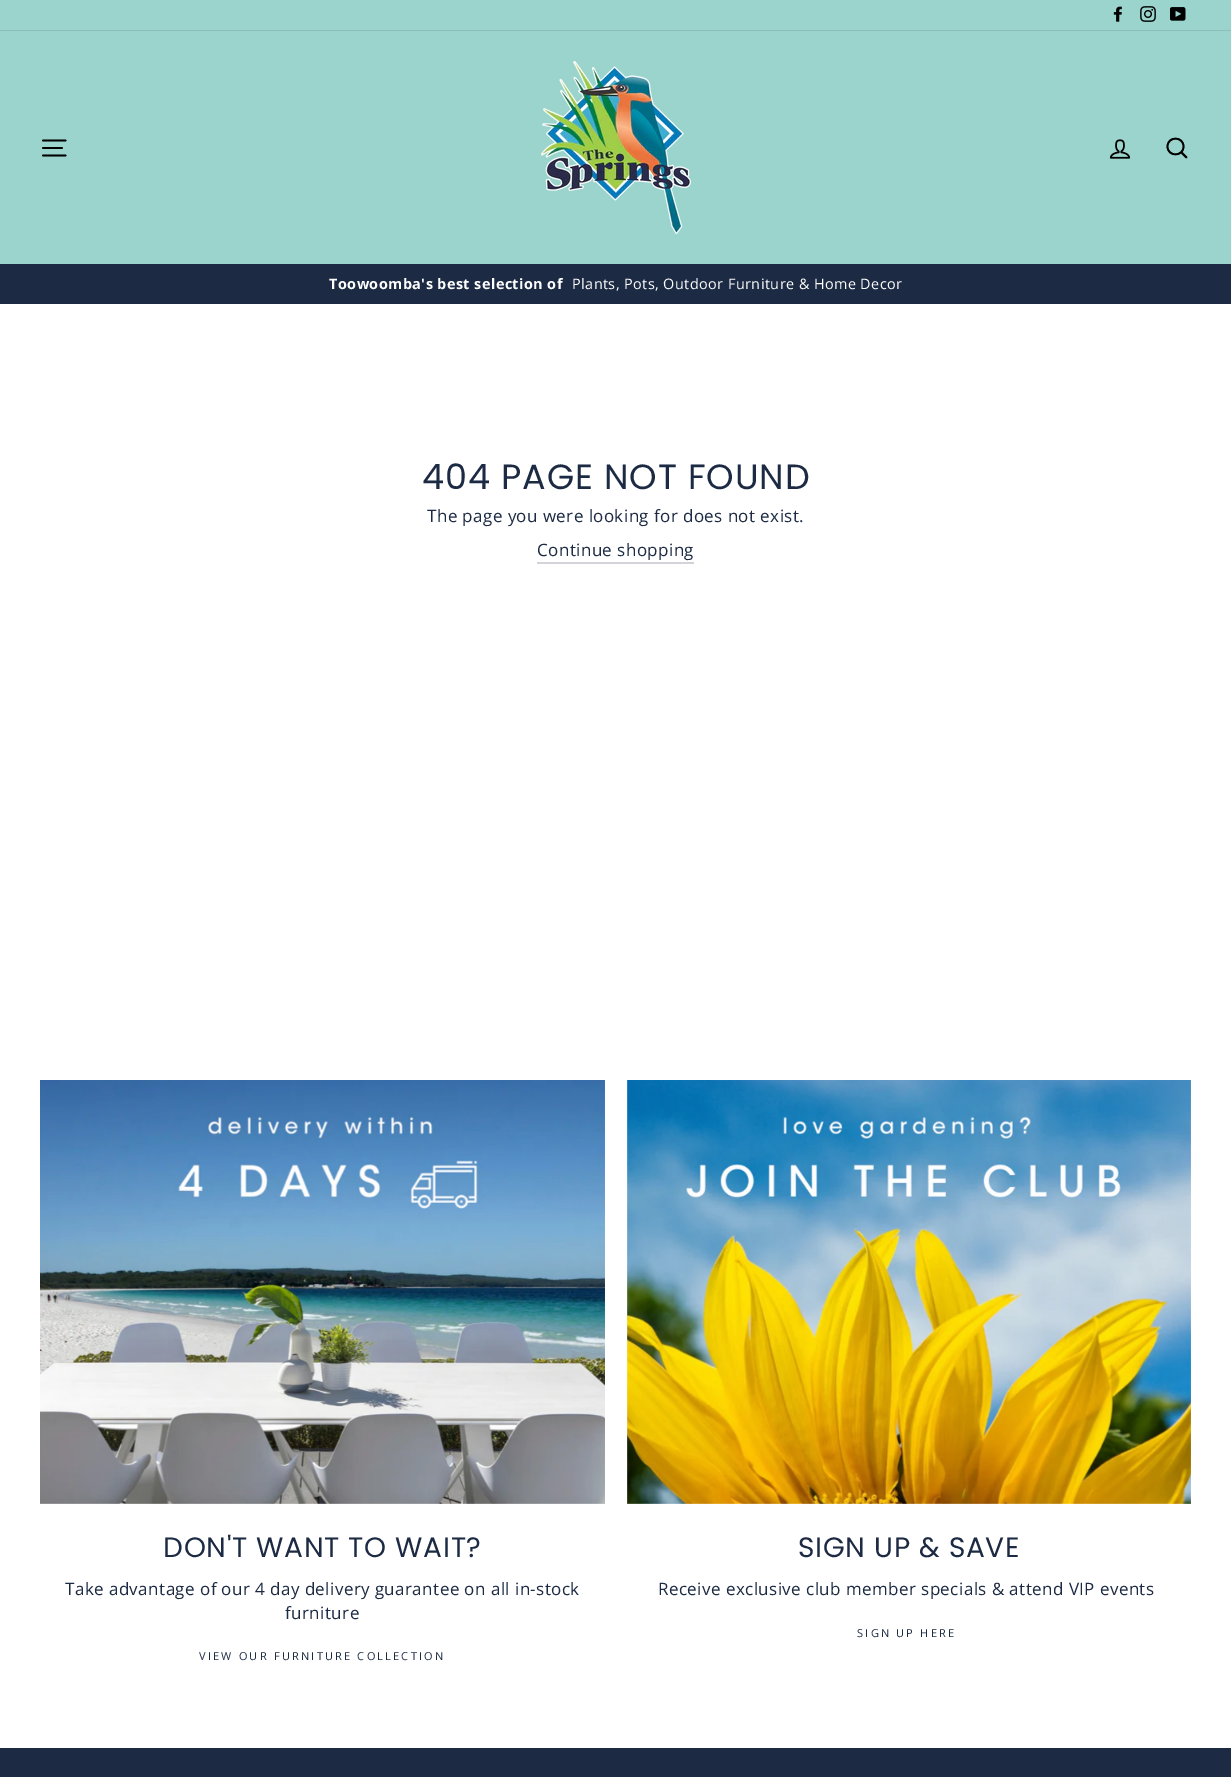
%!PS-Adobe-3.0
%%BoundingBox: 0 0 1231 1777
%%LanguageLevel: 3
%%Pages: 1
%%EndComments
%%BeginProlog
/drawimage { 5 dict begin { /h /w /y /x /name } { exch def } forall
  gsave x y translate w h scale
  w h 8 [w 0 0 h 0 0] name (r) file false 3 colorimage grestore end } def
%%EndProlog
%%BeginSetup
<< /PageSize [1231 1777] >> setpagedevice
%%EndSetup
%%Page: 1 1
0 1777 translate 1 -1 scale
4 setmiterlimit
1 setgray
0 0 1231 1777 rectfill
0.604 0.831 0.8 setrgbcolor
0 0 1231 30 rectfill
(images/1.raw) 1113 6 9 16 drawimage
(images/2.raw) 1140 6 16 16 drawimage
(images/3.raw) 1170 7 16 14 drawimage
0 31 1231 233 rectfill
0.545 0.749 0.722 setrgbcolor
0 30 1231 1 rectfill
0 setgray
1.8 setlinewidth
1 setlinecap
1 setlinejoin
newpath 43 140.5 moveto 65.5 140.5 lineto 43 148 moveto 62 148 lineto 43 155.5 moveto 65.5 155.5 lineto stroke
(images/4.raw) 541 61 150 173 drawimage
(images/5.raw) 1109 139 22 20 drawimage
newpath 1183.5 146.5 moveto 1183.5 157 1167.5 157 1167.5 146.5 curveto 1167.5 136 1183.5 136 1183.5 146.5 curveto closepath 1186.5 157.5 moveto 1181.5 152.5 lineto stroke
0.11 0.165 0.267 setrgbcolor
0 264 1231 40 rectfill
0.824 0.831 0.855 setrgbcolor
537 562 157 2 rectfill
(images/6.raw) 40 1080 565 424 drawimage
(images/7.raw) 627 1080 564 424 drawimage
0.11 0.165 0.267 setrgbcolor
0 1748 1231 29 rectfill
/OpenSans-Bold [14.45 0 0 -14.45 0 0] selectfont
1 setgray
329 289 moveto 0.42 0 (Toowoomba's best selection of) ashow
/OpenSans-Regular [14.45 0 0 -14.45 0 0] selectfont
572 289 moveto 0.42 0 (Plants, Pots, Outdoor Furniture & Home Decor) ashow
/Poppins-Regular [35 0 0 -35 0 0] selectfont
0.11 0.165 0.267 setrgbcolor
422 489 moveto 0.9 0 (404 PAGE NOT FOUND) ashow
/OpenSans-Regular [17 0 0 -17 0 0] selectfont
427 522 moveto 0.42 0 (The page you were looking for does not exist.) ashow
537 556 moveto 0.42 0 (Continue shopping) ashow
/Poppins-Regular [28 0 0 -28 0 0] selectfont
163 1557 moveto 0.75 0 (DON'T WANT TO WAIT?) ashow
/OpenSans-Regular [17 0 0 -17 0 0] selectfont
65 1595 moveto 0.42 0 (Take advantage of our 4 day delivery guarantee on all in-stock) ashow
285 1619 moveto 0.42 0 (furniture) ashow
/OpenSans-Regular [11 0 0 -11 0 0] selectfont
199 1660 moveto 2.2 0 (VIEW OUR FURNITURE COLLECTION) ashow
/Poppins-Regular [28 0 0 -28 0 0] selectfont
798 1557 moveto 0.75 0 (SIGN UP & SAVE) ashow
/OpenSans-Regular [17 0 0 -17 0 0] selectfont
658 1595 moveto 0.42 0 (Receive exclusive club member specials & attend VIP events) ashow
/OpenSans-Regular [11 0 0 -11 0 0] selectfont
857 1637 moveto 2.2 0 (SIGN UP HERE) ashow
showpage
%%EOF
